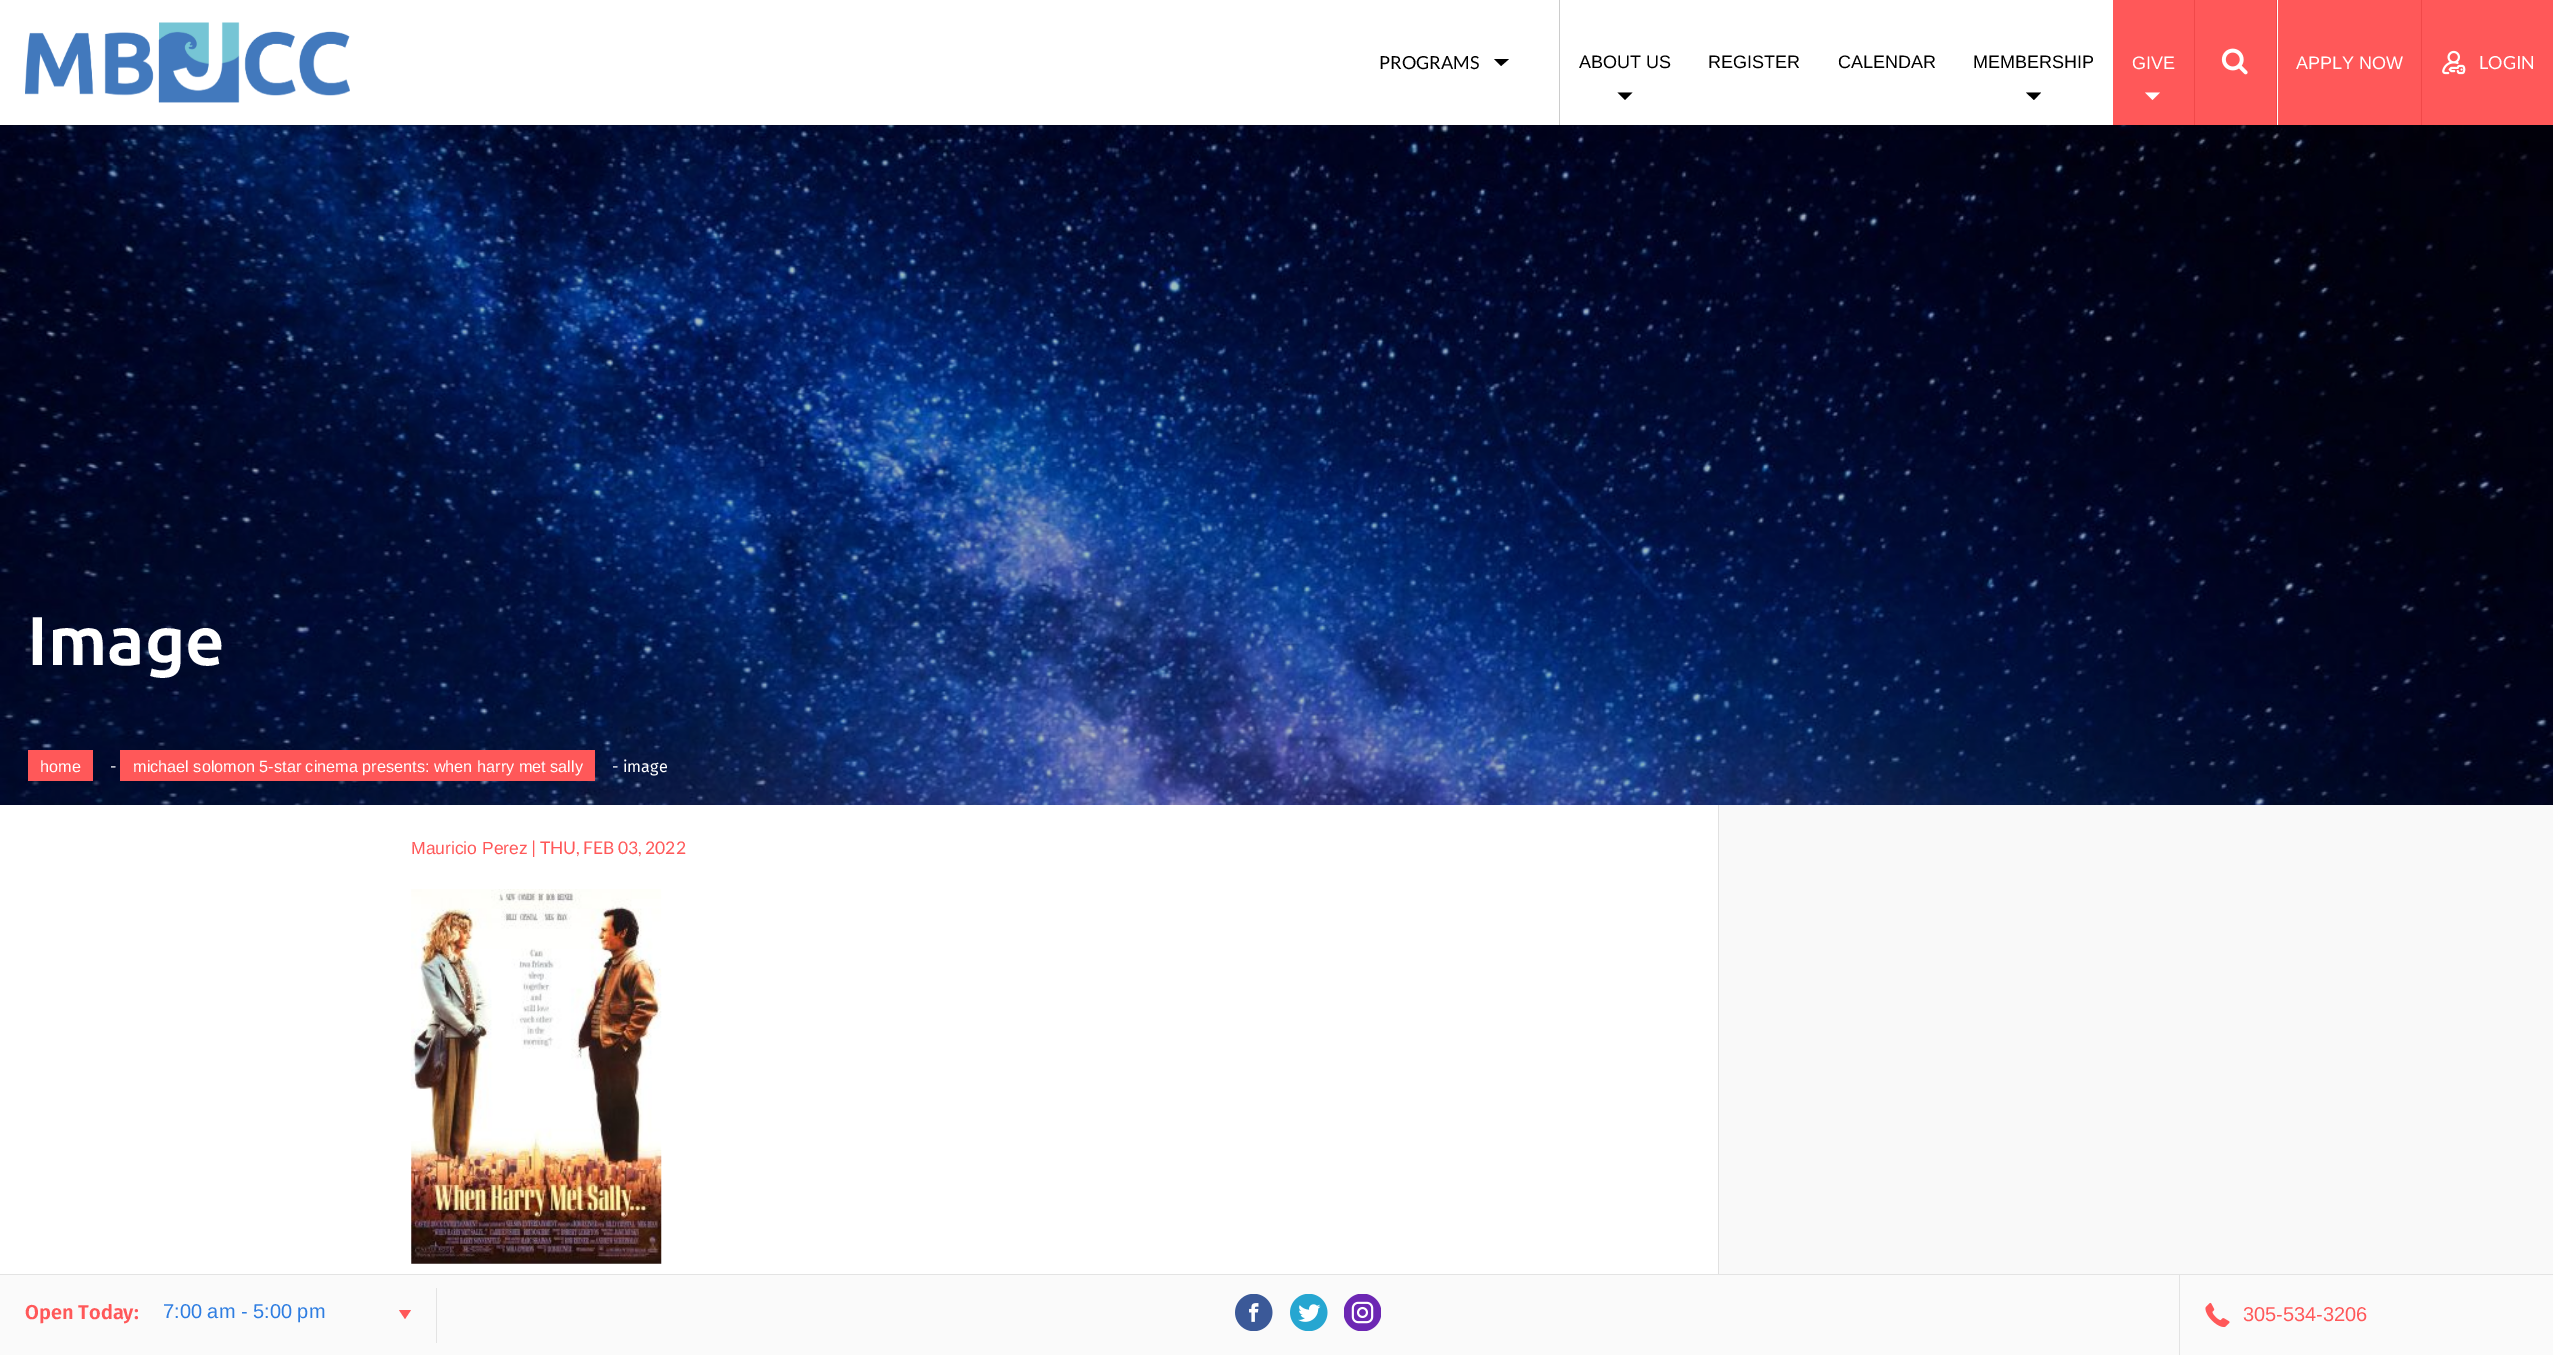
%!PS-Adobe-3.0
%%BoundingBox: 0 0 2553 1355
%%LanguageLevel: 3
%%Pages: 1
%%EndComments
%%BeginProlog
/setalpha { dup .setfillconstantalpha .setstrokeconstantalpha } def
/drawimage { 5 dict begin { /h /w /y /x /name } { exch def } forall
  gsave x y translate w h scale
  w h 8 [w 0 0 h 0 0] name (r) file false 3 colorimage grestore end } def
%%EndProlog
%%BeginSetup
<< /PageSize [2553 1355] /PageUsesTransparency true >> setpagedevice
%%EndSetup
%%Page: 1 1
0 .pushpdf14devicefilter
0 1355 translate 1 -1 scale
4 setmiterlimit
1 setgray
0 0 2553 1355 rectfill
(images/1.raw) 25 22 325 81 drawimage
0 setgray
newpath 1494 59 moveto 1509 59 lineto 1501 66 lineto closepath fill
0.8 setgray
1559 0 1 125 rectfill
0 setgray
newpath 1617.5 92.5 moveto 1632.5 92.5 lineto 1625 100 lineto closepath fill
newpath 2026 92.5 moveto 2041 92.5 lineto 2034 100 lineto closepath fill
1 0.345 0.349 setrgbcolor
2113 0 81 125 rectfill
0.945 0.282 0.286 setrgbcolor
2194 0 1 125 rectfill
1 setgray
newpath 2145 92.5 moveto 2160 92.5 lineto 2152.5 100 lineto closepath fill
0.945 0.282 0.286 setrgbcolor
2276 0 1 125 rectfill
1 0.345 0.349 setrgbcolor
2195 0 81 125 rectfill
(images/2.raw) 2221 48 27 27 drawimage
2278 0 275 125 rectfill
0.945 0.282 0.286 setrgbcolor
2421 0 1 125 rectfill
(images/3.raw) 2442 50 24 25 drawimage
(images/4.raw) 0 125 2553 680 drawimage
0.2 setalpha
0 setgray
0 125 2480 1 rectfill
1 setalpha
1 0.345 0.349 setrgbcolor
28 750 65 31 rectfill
120 750 475 31 rectfill
(images/5.raw) 411 889 251 375 drawimage
0.976 setgray
1719 805 834 469 rectfill
0.882 setgray
1718 805 1 469 rectfill
0.98 setgray
0 1275 2553 80 rectfill
0.89 setgray
0 1274 2553 1 rectfill
436 1288 1 55 rectfill
1 0.345 0.349 setrgbcolor
newpath 399 1310 moveto 411 1310 lineto 405 1319 lineto closepath fill
(images/6.raw) 1235 1294 38 37 drawimage
(images/7.raw) 1290 1294 38 37 drawimage
(images/8.raw) 1344 1294 37 37 drawimage
0.89 setgray
2179 1275 1 80 rectfill
(images/9.raw) 2205 1302 25 26 drawimage
/Lato-Regular [18 0 0 -18 0 0] selectfont
0 setgray
1379 69 moveto (PROGRAMS) show
/LiberationSans-Regular [18 0 0 -18 0 0] selectfont
1579 68 moveto (ABOUT US) show
1708 68 moveto (REGISTER) show
1838 68 moveto (CALENDAR) show
1973 68 moveto (MEMBERSHIP) show
1 setgray
2132 69 moveto (GIVE) show
2296 69 moveto (APPLY NOW) show
/Lato-Regular [18 0 0 -18 0 0] selectfont
2479 69 moveto (LOGIN) show
/Ubuntu-Bold [69 0 0 -69 0 0] selectfont
27 665 moveto (Image) show
/LiberationSans-Regular [16.25 0 0 -16.25 0 0] selectfont
40 772 moveto (home) show
/FiraSans-Regular [16.25 0 0 -16.25 0 0] selectfont
110 772 moveto (-) show
/LiberationSans-Regular [16.25 0 0 -16.25 0 0] selectfont
133 772 moveto (michael solomon 5-star cinema presents: when harry met sally) show
/FiraSans-Regular [16.25 0 0 -16.25 0 0] selectfont
612 772 moveto (- image) show
/LiberationSans-Regular [17.5 0 0 -17.5 0 0] selectfont
1 0.345 0.349 setrgbcolor
411 854 moveto (Mauricio Perez) show
/Lato-Regular [17.5 0 0 -17.5 0 0] selectfont
531 854 moveto (| THU, FEB 03, 2022) show
/FiraSans-SemiBold [20 0 0 -20 0 0] selectfont
25 1319 moveto (Open Today:) show
/LiberationSans-Regular [20 0 0 -20 0 0] selectfont
0.18 0.49 0.882 setrgbcolor
163 1318 moveto (7:00 am - 5:00 pm) show
1 0.345 0.349 setrgbcolor
2243 1321 moveto (305-534-3206) show
.poppdf14devicefilter showpage
%%EOF
